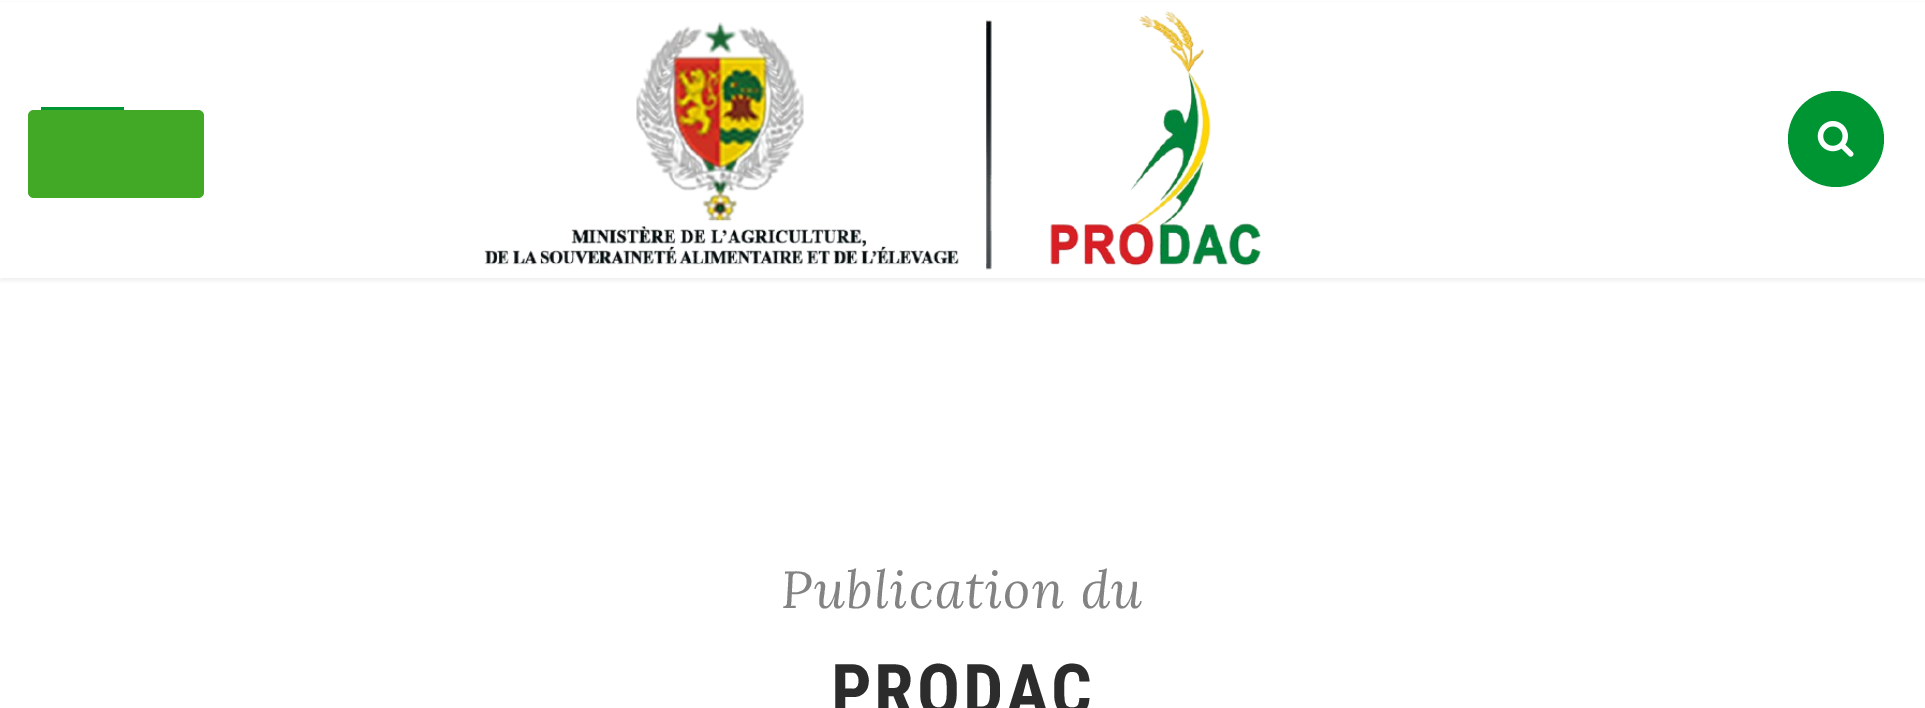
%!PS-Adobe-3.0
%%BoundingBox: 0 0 1925 708
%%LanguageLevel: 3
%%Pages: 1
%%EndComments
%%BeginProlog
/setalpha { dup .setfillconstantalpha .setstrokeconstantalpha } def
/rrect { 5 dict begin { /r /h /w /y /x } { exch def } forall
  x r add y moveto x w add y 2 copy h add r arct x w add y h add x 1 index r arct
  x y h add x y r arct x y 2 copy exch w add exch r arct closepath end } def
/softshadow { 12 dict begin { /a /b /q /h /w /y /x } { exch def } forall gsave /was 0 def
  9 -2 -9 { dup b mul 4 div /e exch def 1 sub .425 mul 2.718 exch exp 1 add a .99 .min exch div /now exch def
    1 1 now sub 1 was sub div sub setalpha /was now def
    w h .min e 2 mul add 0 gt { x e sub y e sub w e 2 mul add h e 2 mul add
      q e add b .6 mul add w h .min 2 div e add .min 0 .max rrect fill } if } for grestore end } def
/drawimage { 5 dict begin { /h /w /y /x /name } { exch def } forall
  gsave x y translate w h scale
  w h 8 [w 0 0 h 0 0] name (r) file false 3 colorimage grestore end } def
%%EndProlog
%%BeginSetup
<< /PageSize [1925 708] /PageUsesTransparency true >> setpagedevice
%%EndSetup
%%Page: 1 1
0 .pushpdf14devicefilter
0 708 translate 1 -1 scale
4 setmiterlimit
1 setgray
0 0 1925 708 rectfill
0 setgray
0 3 1925 278 0 1.5 0.06 softshadow
1 setgray
0 2 1925 276 rectfill
0.259 0.663 0.149 setrgbcolor
28 110 176 88 6 rrect fill
0 0.584 0.2 setrgbcolor
41 107 83 3 rectfill
(images/1.raw) 484 11 777 259 drawimage
newpath 1836 139 48 0 360 arc closepath fill
(images/2.raw) 1817 121 37 36 drawimage
/Lora-Italic [52.25 0 0 -52.25 0 0] selectfont
0.514 setgray
781 608 moveto 1.4 0 (Publication du) ashow
/RobotoCondensed-Bold [71.5 0 0 -71.5 0 0] selectfont
0.173 setgray
831 715 moveto 2.75 0 (PRODAC) ashow
.poppdf14devicefilter showpage
%%EOF
